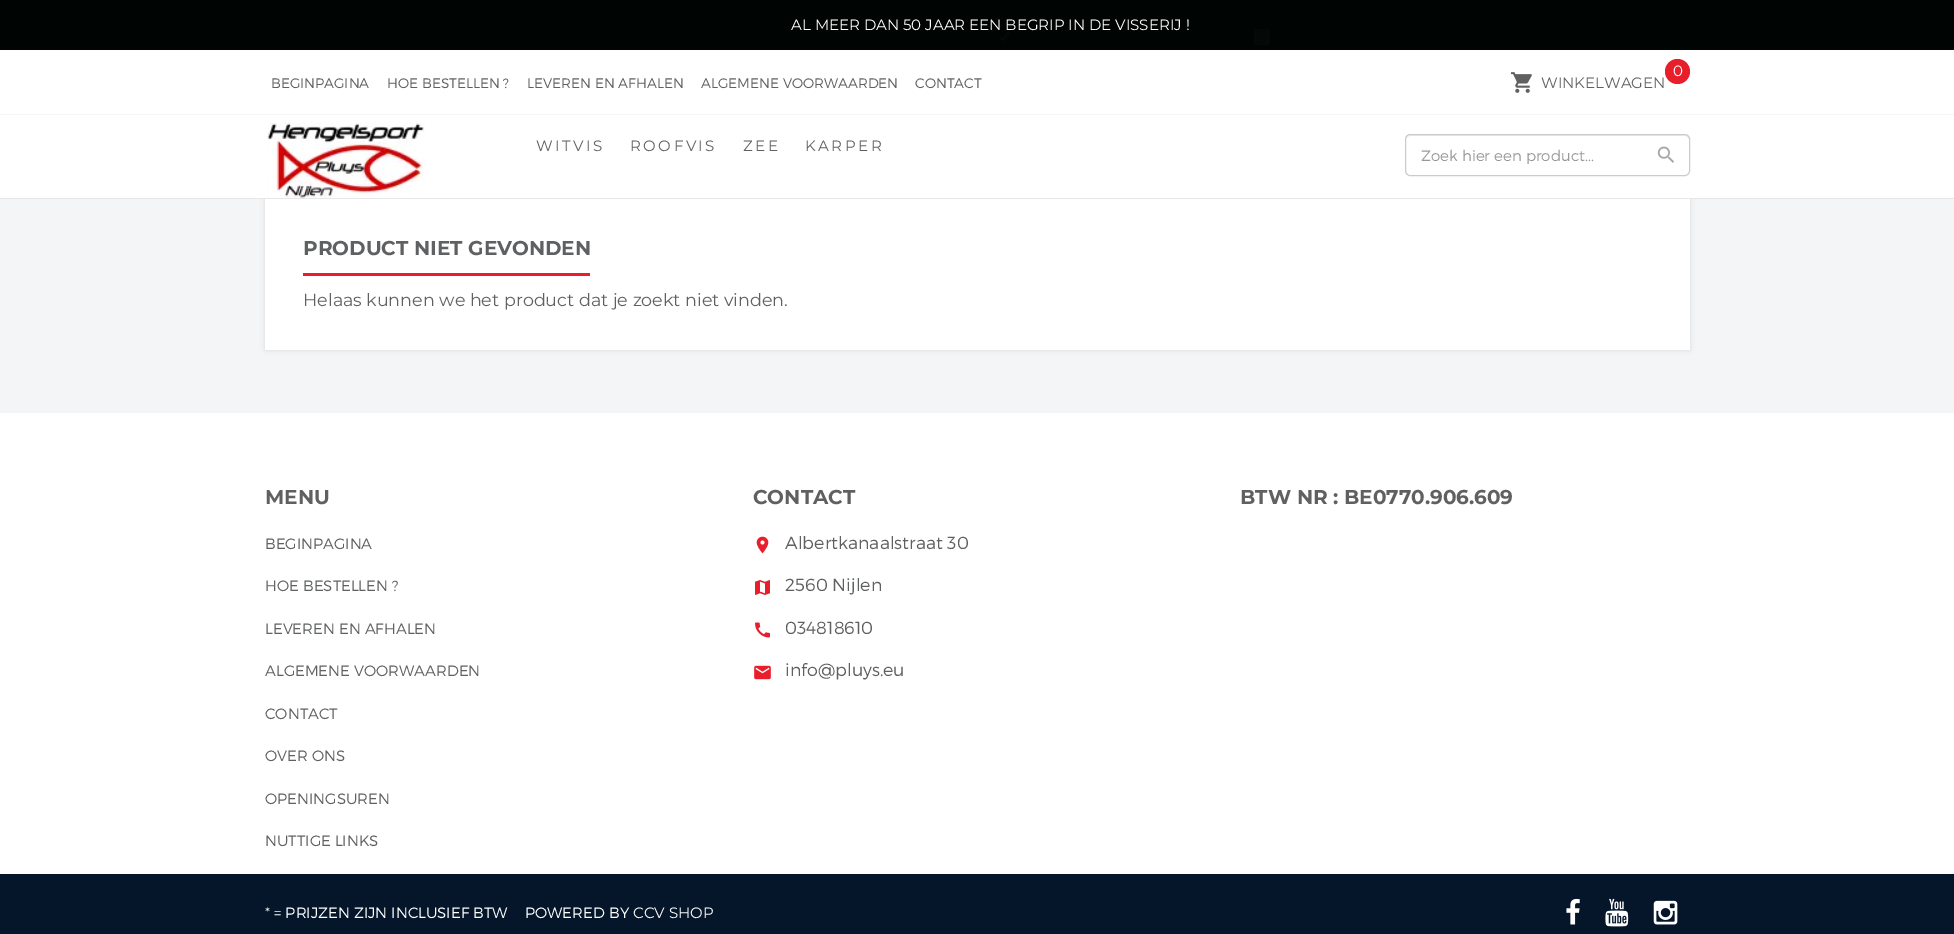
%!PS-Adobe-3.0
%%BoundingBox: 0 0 1954 934
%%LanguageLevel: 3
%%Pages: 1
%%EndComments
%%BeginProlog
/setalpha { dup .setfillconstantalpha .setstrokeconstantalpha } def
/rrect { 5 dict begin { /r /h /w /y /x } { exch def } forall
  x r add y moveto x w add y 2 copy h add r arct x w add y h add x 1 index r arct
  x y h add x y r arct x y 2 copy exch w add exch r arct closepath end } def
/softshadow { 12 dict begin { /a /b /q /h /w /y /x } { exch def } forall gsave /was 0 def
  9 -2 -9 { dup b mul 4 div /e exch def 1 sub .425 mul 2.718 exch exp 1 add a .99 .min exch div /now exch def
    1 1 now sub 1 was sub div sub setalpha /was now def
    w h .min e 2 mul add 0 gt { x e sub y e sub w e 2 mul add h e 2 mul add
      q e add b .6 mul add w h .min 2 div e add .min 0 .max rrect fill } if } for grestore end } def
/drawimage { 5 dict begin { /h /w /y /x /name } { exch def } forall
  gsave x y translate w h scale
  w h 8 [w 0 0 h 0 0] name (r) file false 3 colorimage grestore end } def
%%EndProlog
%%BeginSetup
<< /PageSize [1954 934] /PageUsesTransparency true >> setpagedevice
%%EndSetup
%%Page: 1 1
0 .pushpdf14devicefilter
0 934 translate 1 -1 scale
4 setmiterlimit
0.957 0.961 0.965 setrgbcolor
0 0 1954 934 rectfill
0.741 setgray
265 175 1425 175 0 2.5 0.5 softshadow
1 setgray
0 50 1954 148 rectfill
0.906 setgray
0 198 1954 1 rectfill
0 0.02 0.016 setrgbcolor
0 0 1954 50 rectfill
(images/1.raw) 1511 72 21 21 drawimage
0.91 0.118 0.169 setrgbcolor
newpath 1677.5 71.5 12.5 0 360 arc closepath fill
0.957 0.961 0.965 setrgbcolor
0 114 1954 1 rectfill
(images/2.raw) 267 122 158 76 drawimage
0.925 setgray
newpath 1410 136 moveto 1685 136 lineto 1687 136 1689 138 1689 140 curveto 1689 137 1688 135 1685 135 curveto 1410 135 lineto 1407 135 1406 137 1406 140 curveto 1406 138 1408 136 1410 136 curveto closepath fill
0.8 setgray
1405.5 134.5 284 41 4.5 rrect stroke
(images/3.raw) 1657 146 17 17 drawimage
0.016 0.031 0.027 setrgbcolor
2.6 setlinewidth
newpath 999.5 37 moveto 1003 40 lineto 1009 32 lineto stroke
1254 29 16 16 2.5 rrect fill
1 setgray
265 199 1425 151 rectfill
0.91 0.118 0.169 setrgbcolor
303 273 287 3 rectfill
1 setgray
0 413 1954 461 rectfill
(images/4.raw) 756 536 13 18 drawimage
(images/5.raw) 755 580 15 15 drawimage
(images/6.raw) 755 622 15 16 drawimage
(images/7.raw) 754 665 17 15 drawimage
0.02 0.086 0.169 setrgbcolor
0 874 1954 60 rectfill
(images/8.raw) 1566 898 14 27 drawimage
(images/9.raw) 1605 898 24 29 drawimage
(images/10.raw) 1653 900 25 25 drawimage
/Montserrat-Regular [15 0 0 -15 0 0] selectfont
1 setgray
791 30 moveto (AL MEER DAN 50 JAAR EEN BEGRIP IN DE VISSERIJ !) show
/Montserrat-Light [13.75 0 0 -13.75 0 0] selectfont
0.369 0.376 0.384 setrgbcolor
271 88 moveto (BEGINPAGINA) show
387 88 moveto (HOE BESTELLEN ?) show
527 88 moveto (LEVEREN EN AFHALEN) show
701 88 moveto (ALGEMENE VOORWAARDEN) show
915 88 moveto (CONTACT) show
/Montserrat-Regular [15 0 0 -15 0 0] selectfont
1541 88 moveto (WINKELWAGEN) show
1 setgray
1673 76 moveto (0) show
0.369 0.376 0.384 setrgbcolor
536 151 moveto 2.5 0 (WITVIS) ashow
630 151 moveto 2.5 0 (ROOFVIS) ashow
743 151 moveto 2.5 0 (ZEE) ashow
805 151 moveto 2.5 0 (KARPER) ashow
/Montserrat-Light [15 0 0 -15 0 0] selectfont
0.6 setgray
1421 161 moveto (Zoek hier een product...) show
/Montserrat-Bold [20 0 0 -20 0 0] selectfont
0.369 0.376 0.384 setrgbcolor
303 255 moveto (PRODUCT NIET GEVONDEN) show
/Montserrat-Regular [17.5 0 0 -17.5 0 0] selectfont
303 306 moveto (Helaas kunnen we het product dat je zoekt niet vinden.) show
/Montserrat-Bold [20 0 0 -20 0 0] selectfont
265 504 moveto (MENU) show
/Montserrat-Light [15 0 0 -15 0 0] selectfont
265 549 moveto (BEGINPAGINA) show
265 591 moveto (HOE BESTELLEN ?) show
265 634 moveto (LEVEREN EN AFHALEN) show
265 676 moveto (ALGEMENE VOORWAARDEN) show
265 719 moveto (CONTACT) show
265 761 moveto (OVER ONS) show
265 804 moveto (OPENINGSUREN) show
265 846 moveto (NUTTIGE LINKS) show
/Montserrat-Bold [20 0 0 -20 0 0] selectfont
753 504 moveto (CONTACT) show
/Montserrat-Light [17.5 0 0 -17.5 0 0] selectfont
785 549 moveto (Albertkanaalstraat 30) show
785 591 moveto (2560 Nijlen) show
785 634 moveto (034818610) show
785 676 moveto (info@pluys.eu) show
/Montserrat-Bold [20 0 0 -20 0 0] selectfont
1240 504 moveto (BTW NR : BE0770.906.609) show
/Montserrat-Light [15 0 0 -15 0 0] selectfont
1 setgray
265 918 moveto (* = PRIJZEN ZIJN INCLUSIEF BTW) show
525 918 moveto (POWERED BY) show
/Montserrat-Regular [15 0 0 -15 0 0] selectfont
633 918 moveto (CCV SHOP) show
.poppdf14devicefilter showpage
%%EOF
